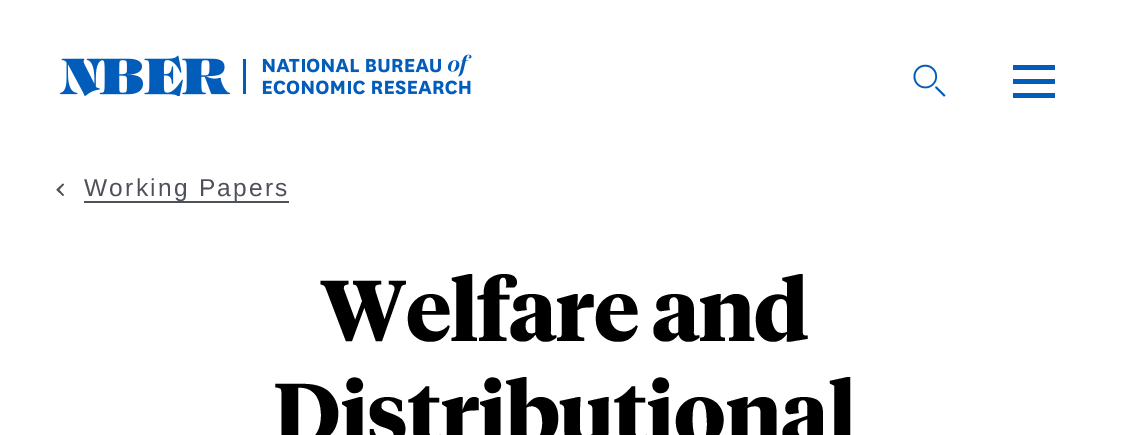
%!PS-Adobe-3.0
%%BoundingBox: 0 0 1128 435
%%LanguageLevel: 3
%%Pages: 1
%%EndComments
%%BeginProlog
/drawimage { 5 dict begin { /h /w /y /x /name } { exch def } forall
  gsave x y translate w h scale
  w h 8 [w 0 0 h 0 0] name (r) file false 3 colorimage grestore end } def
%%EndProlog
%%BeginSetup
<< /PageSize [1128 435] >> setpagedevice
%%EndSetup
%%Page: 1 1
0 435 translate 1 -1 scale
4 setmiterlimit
1 setgray
0 0 1128 435 rectfill
(images/1.raw) 59 54 413 42 drawimage
(images/2.raw) 913 64 33 33 drawimage
0.008 0.361 0.725 setrgbcolor
1013 79 42 5 rectfill
1013 65 42 5 rectfill
1013 93 42 5 rectfill
0.306 0.314 0.353 setrgbcolor
newpath 58 188.5 moveto 64 195 lineto 63 196 lineto 56.5 190 lineto closepath fill
newpath 56.5 189.5 moveto 63 183.5 lineto 64 184.5 lineto 58 191 lineto closepath fill
84 201 205 2 rectfill
/Arimo-Regular [24.5 0 0 -24.5 0 0] selectfont
84 196 moveto 2.25 0 (Working Papers) ashow
/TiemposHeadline-Bold [85.75 0 0 -85.75 0 0] selectfont
0 setgray
320 341 moveto -0.9 0 (Welfare and) ashow
273 444 moveto -0.9 0 (Distributional) ashow
showpage
%%EOF
